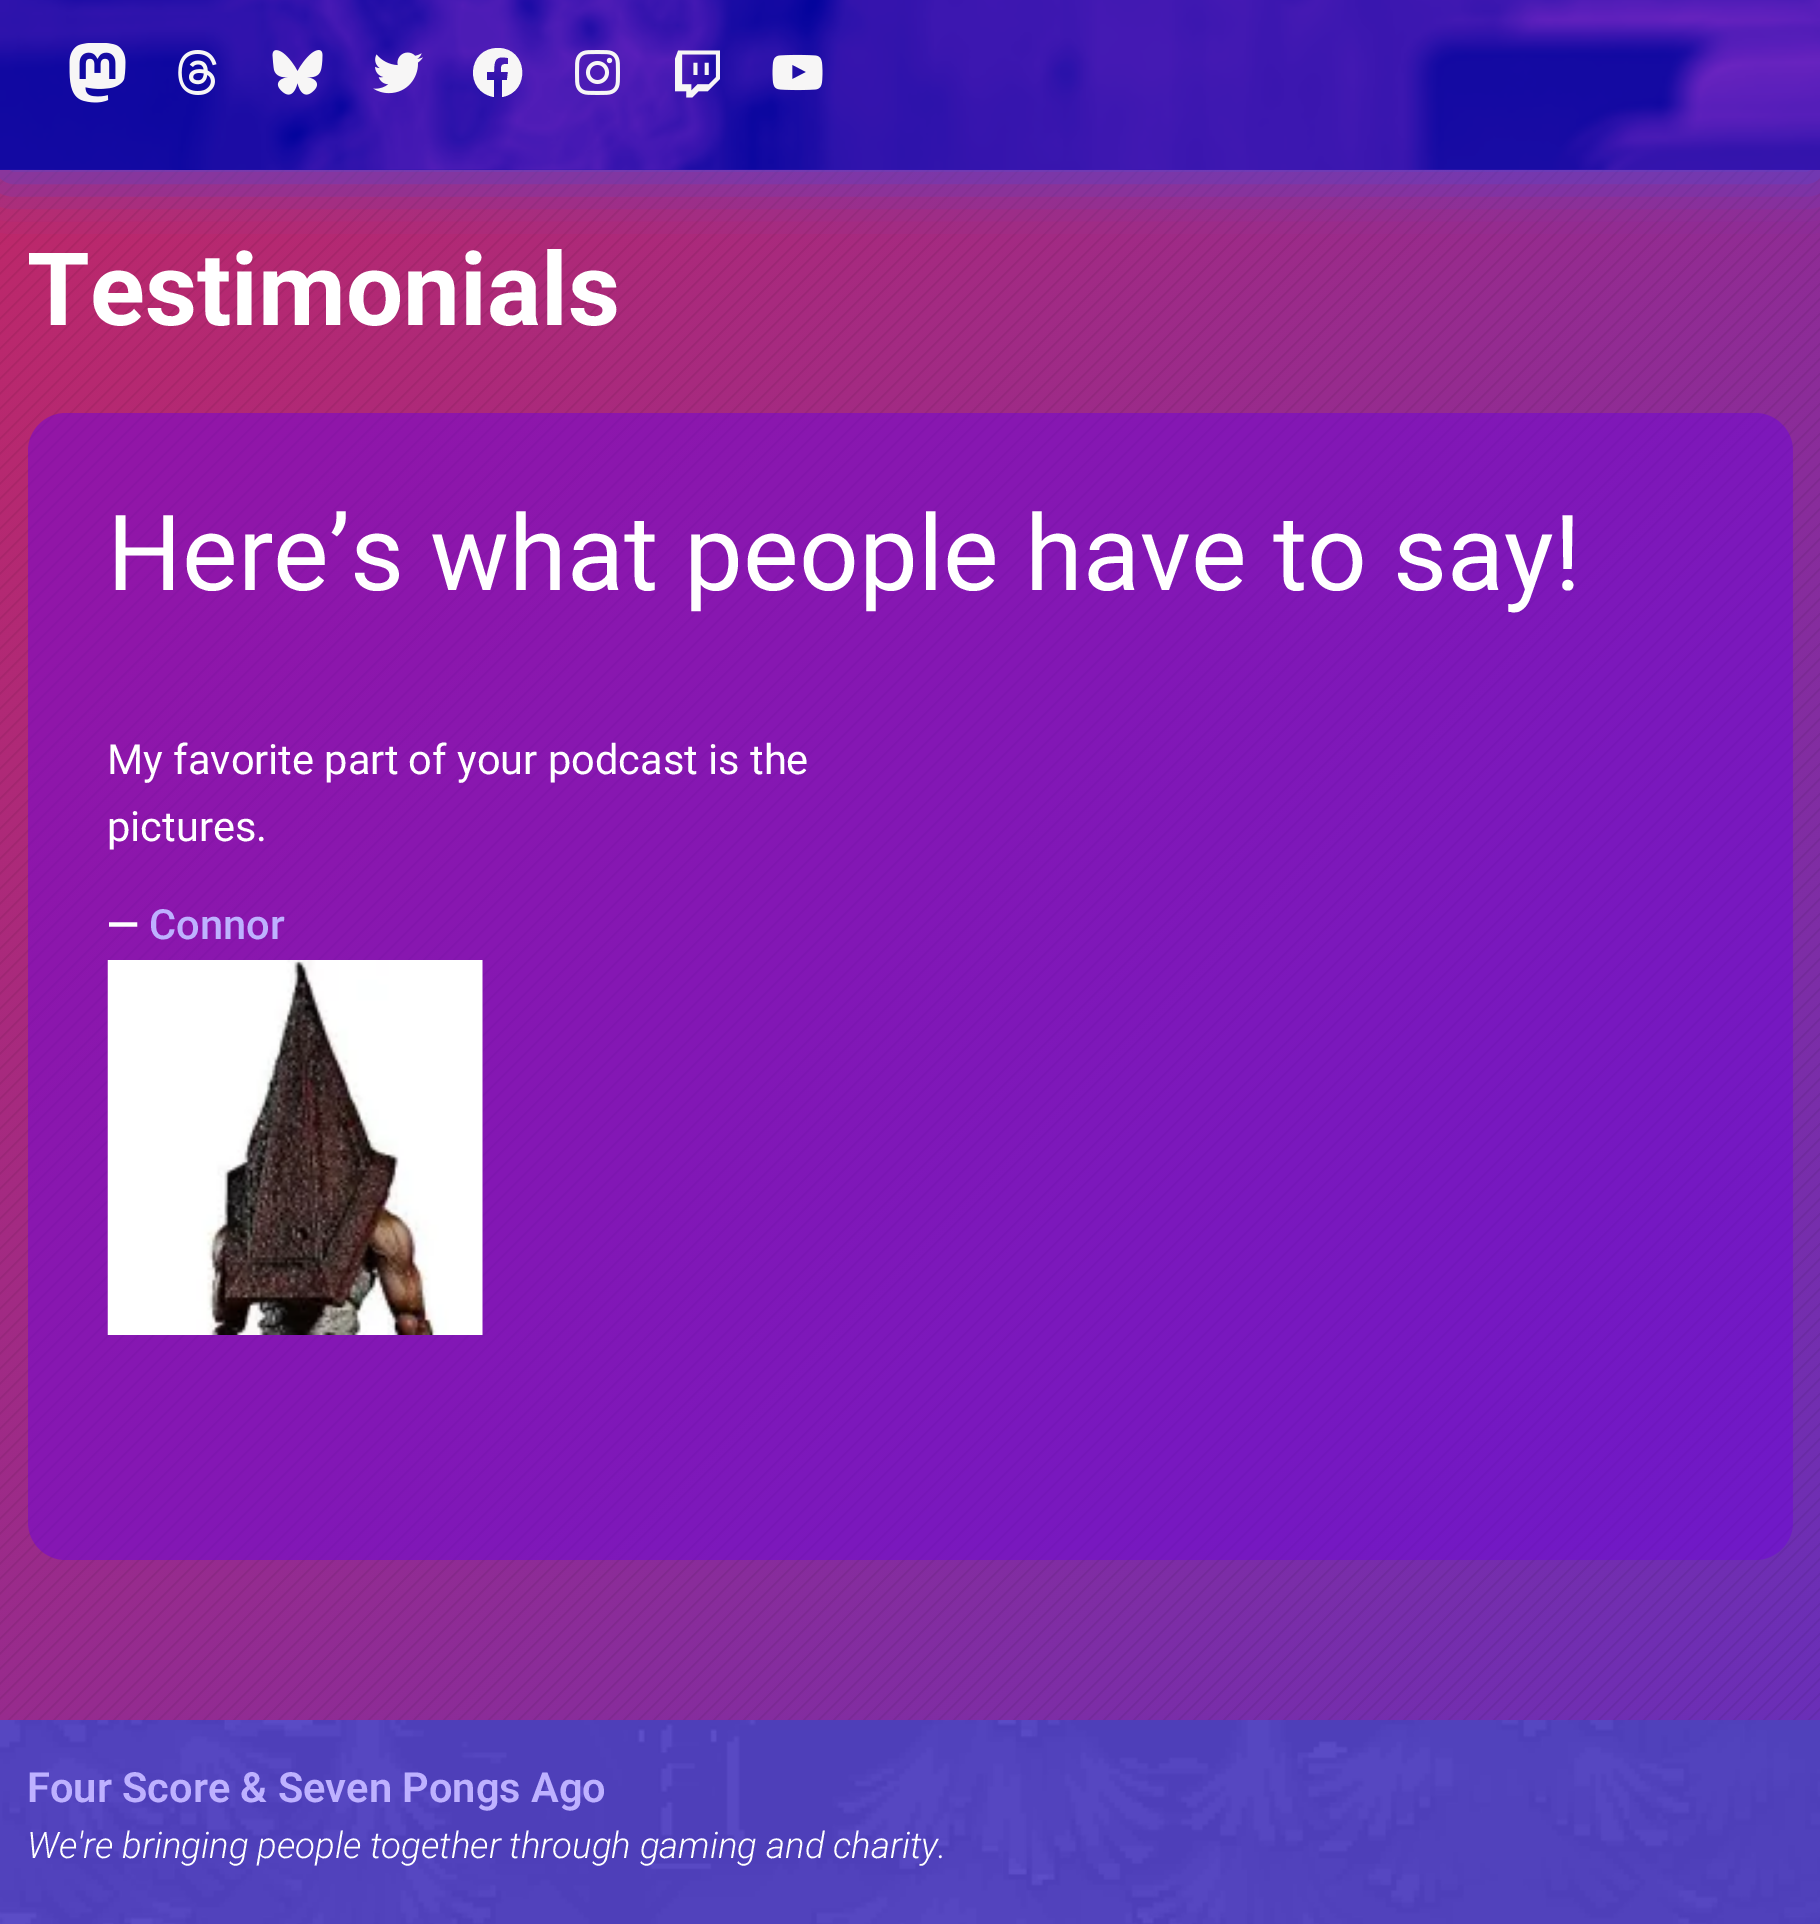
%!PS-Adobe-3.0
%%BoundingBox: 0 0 1820 1924
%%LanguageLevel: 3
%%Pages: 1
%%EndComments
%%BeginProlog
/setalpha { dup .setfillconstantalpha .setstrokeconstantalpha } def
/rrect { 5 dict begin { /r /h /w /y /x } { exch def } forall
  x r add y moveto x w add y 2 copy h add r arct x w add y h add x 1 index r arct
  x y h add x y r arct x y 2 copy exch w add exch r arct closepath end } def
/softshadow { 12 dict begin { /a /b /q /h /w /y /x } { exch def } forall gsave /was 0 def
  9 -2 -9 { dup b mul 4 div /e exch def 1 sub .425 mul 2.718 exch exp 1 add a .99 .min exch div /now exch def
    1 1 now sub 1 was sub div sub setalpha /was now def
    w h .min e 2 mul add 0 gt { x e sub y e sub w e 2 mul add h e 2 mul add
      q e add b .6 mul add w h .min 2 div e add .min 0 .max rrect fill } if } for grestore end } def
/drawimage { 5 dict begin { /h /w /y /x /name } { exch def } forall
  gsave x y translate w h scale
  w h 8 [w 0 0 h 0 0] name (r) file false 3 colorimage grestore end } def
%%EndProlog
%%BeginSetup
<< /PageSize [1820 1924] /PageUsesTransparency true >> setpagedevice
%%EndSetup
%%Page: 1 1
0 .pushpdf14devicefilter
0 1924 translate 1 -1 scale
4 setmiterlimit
1 setgray
0 0 1820 1924 rectfill
(images/1.raw) 0 170 1820 1550 drawimage
0.333 0.271 0.808 setrgbcolor
0 -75 1820 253 0 25 0.6 softshadow
0 -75 1820 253 0 25 0.6 softshadow
(images/2.raw) 0 0 1820 170 drawimage
(images/3.raw) 69 43 57 60 drawimage
(images/4.raw) 178 50 39 45 drawimage
(images/5.raw) 272 50 51 45 drawimage
(images/6.raw) 373 52 50 42 drawimage
0.969 0.965 0.965 setrgbcolor
newpath 498 48 moveto 467 48 464 92 494 97 curveto 494 80 lineto 487 80 lineto 487 72 lineto 494 72 lineto 494 61 495 55 508 58 curveto 508 64 lineto 501 64 501 65 501 72 curveto 508 72 lineto 507 80 lineto 502 80 lineto 502 97 lineto 531 92 528 48 498 48 curveto closepath fill
(images/7.raw) 575 50 45 45 drawimage
(images/8.raw) 675 50 45 48 drawimage
(images/9.raw) 772 54 51 37 drawimage
0.5 setalpha
0.439 0.016 0.859 setrgbcolor
28 413 1765 1147 38 rrect fill
1 setalpha
(images/10.raw) 107 960 376 375 drawimage
0.333 0.271 0.808 setrgbcolor
0 1720 1820 204 rectfill
(images/11.raw) 0 1720 1820 204 drawimage
/Roboto-Bold [101.5 0 0 -101.5 0 0] selectfont
1 setgray
27 325 moveto (Testimonials) show
/Roboto-Regular [105 0 0 -105 0 0] selectfont
107 590 moveto (Here’s what people have to say!) show
/Roboto-Regular [41.6 0 0 -41.6 0 0] selectfont
107 774 moveto (My favorite part of your podcast is the) show
107 841 moveto (pictures.) show
/Roboto-Bold [41.6 0 0 -41.6 0 0] selectfont
107 939 moveto (―) show
/Roboto-Medium [41.6 0 0 -41.6 0 0] selectfont
0.745 0.694 1 setrgbcolor
149 939 moveto (Connor) show
/Roboto-SemiBold [41.6 0 0 -41.6 0 0] selectfont
27 1802 moveto (Four Score & Seven Pongs Ago) show
/Roboto-LightItalic [36.6 0 0 -36.6 0 0] selectfont
1 setgray
27 1858 moveto (We're bringing people together through gaming and charity.) show
.poppdf14devicefilter showpage
%%EOF
